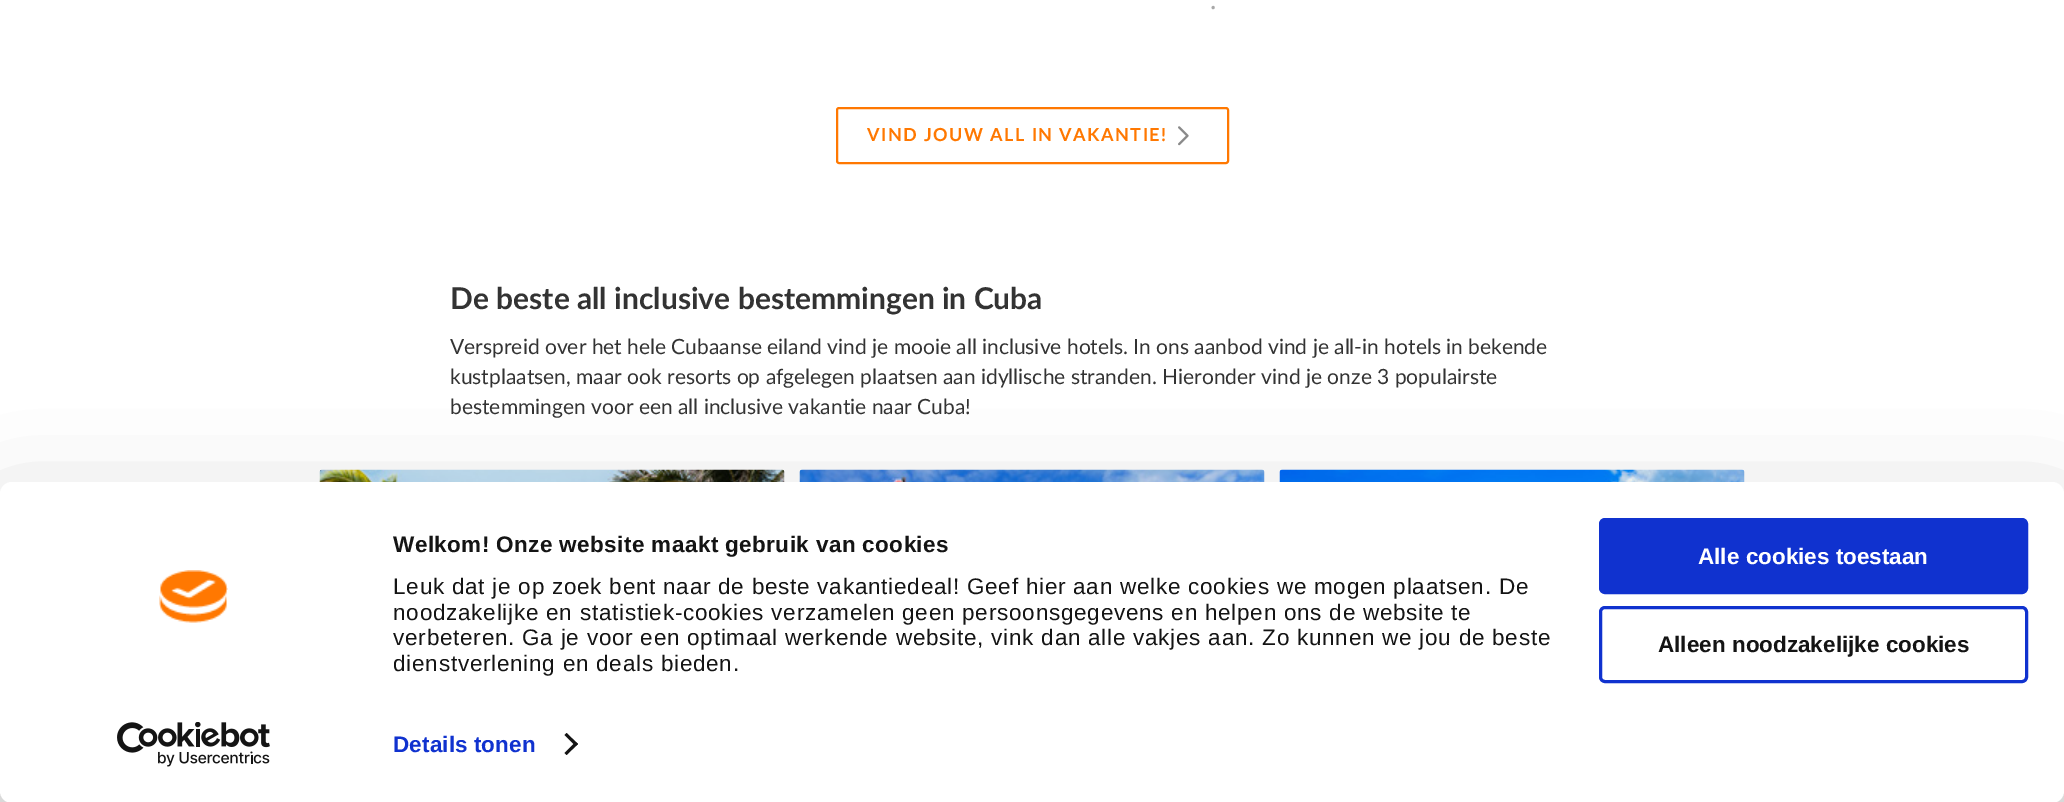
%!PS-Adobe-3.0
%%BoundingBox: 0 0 2064 802
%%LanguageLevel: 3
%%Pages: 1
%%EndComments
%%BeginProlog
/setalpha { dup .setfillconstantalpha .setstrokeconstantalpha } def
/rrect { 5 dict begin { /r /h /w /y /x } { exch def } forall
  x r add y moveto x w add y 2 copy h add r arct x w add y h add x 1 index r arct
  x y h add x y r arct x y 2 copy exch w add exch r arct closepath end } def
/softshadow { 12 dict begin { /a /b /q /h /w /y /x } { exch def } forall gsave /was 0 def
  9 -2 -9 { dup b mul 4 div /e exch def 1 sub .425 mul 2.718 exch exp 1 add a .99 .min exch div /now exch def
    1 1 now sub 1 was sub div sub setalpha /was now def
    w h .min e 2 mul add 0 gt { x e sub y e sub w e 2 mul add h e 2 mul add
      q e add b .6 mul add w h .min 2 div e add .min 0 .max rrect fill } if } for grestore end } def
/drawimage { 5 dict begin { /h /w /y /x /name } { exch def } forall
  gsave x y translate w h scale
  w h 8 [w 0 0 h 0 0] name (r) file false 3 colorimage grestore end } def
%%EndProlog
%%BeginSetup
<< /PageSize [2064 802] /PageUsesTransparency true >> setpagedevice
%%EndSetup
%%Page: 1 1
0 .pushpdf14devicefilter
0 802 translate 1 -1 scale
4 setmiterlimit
1 setgray
0 0 2064 802 rectfill
1 0.471 0.004 setrgbcolor
2 setlinewidth
837 108 391 55 2 rrect stroke
(images/1.raw) 1178 126 11 20 drawimage
(images/2.raw) 319 469 466 13 drawimage
(images/3.raw) 799 469 466 13 drawimage
(images/4.raw) 1279 469 466 13 drawimage
0 setgray
0 527 2064 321 12 52.5 0.3 softshadow
1 setgray
0 482 2064 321 12 rrect fill
(images/5.raw) 159 570 69 53 drawimage
(images/6.raw) 117 722 153 45 drawimage
0.078 setgray
newpath 566.5 733 moveto 578 744 lineto 575.5 746 lineto 564.5 735 lineto closepath fill
newpath 575.5 742 moveto 578 744 lineto 566.5 755 lineto 564.5 753 lineto closepath fill
0.063 0.196 0.812 setrgbcolor
1600.5 519.5 426 73 4.5 rrect gsave fill grestore
3 setlinewidth
stroke
1600.5 607.5 426 74 4.5 rrect stroke
/Lato-Regular [27 0 0 -27 0 0] selectfont
0.659 setgray
1210 9 moveto (.) show
/Lato-Bold [18 0 0 -18 0 0] selectfont
1 0.471 0.004 setrgbcolor
867 141 moveto 1.45 0 (VIND JOUW ALL IN VAKANTIE!) ashow
/Lato-Bold [30 0 0 -30 0 0] selectfont
0.2 setgray
450 309 moveto (De beste all inclusive bestemmingen in Cuba) show
/Lato-Regular [21 0 0 -21 0 0] selectfont
450 354 moveto (Verspreid over het hele Cubaanse eiland vind je mooie all inclusive hotels. In ons aanbod vind je all-in hotels in bekende) show
450 384 moveto (kustplaatsen, maar ook resorts op afgelegen plaatsen aan idyllische stranden. Hieronder vind je onze 3 populairste) show
450 414 moveto (bestemmingen voor een all inclusive vakantie naar Cuba!) show
/LiberationSans-Bold [22.5 0 0 -22.5 0 0] selectfont
0.078 setgray
393 552 moveto 0.4 0 (Welkom! Onze website maakt gebruik van cookies) ashow
/LiberationSans-Regular [22.5 0 0 -22.5 0 0] selectfont
393 594 moveto 0.75 0 (Leuk dat je op zoek bent naar de beste vakantiedeal! Geef hier aan welke cookies we mogen plaatsen. De) ashow
393 620 moveto 0.75 0 (noodzakelijke en statistiek-cookies verzamelen geen persoonsgegevens en helpen ons de website te) ashow
393 645 moveto 0.75 0 (verbeteren. Ga je voor een optimaal werkende website, vink dan alle vakjes aan. Zo kunnen we jou de beste) ashow
393 671 moveto 0.75 0 (dienstverlening en deals bieden.) ashow
/LiberationSans-Bold [22.5 0 0 -22.5 0 0] selectfont
0.063 0.196 0.812 setrgbcolor
393 752 moveto 0.1 0 (Details tonen) ashow
1 setgray
1698 564 moveto (Alle cookies toestaan) show
0.078 setgray
1658 652 moveto (Alleen noodzakelijke cookies) show
.poppdf14devicefilter showpage
%%EOF
